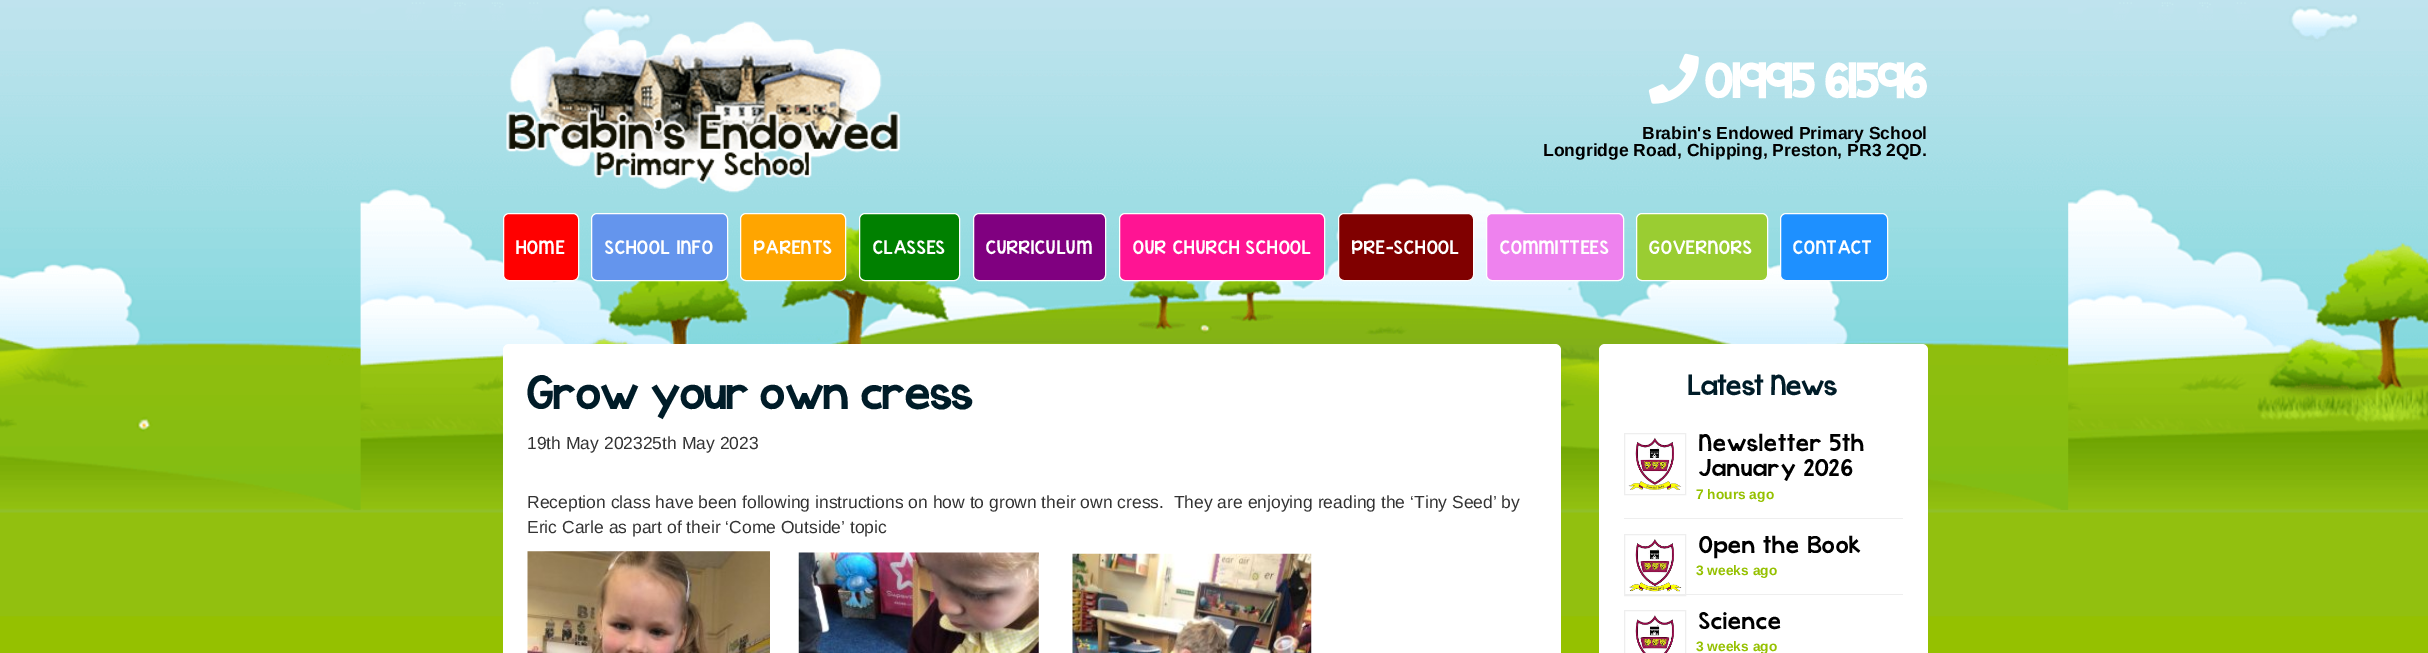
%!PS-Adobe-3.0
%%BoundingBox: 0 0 2428 653
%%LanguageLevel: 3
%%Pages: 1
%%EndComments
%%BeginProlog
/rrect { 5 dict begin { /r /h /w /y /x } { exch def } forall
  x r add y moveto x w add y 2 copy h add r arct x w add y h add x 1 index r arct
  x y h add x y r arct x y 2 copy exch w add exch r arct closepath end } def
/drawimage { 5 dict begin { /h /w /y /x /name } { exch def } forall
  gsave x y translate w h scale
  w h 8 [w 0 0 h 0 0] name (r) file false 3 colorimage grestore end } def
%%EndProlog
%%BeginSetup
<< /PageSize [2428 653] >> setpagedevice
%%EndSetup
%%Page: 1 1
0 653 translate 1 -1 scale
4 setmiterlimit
0.584 0.757 0 setrgbcolor
0 0 2428 653 rectfill
(images/1.raw) 0 0 2428 617 drawimage
(images/2.raw) 506 21 395 172 drawimage
(images/3.raw) 1648 53 51 51 drawimage
1 0 0 setrgbcolor
503.5 213.5 75 67 5.5 rrect gsave fill grestore
1 setgray
stroke
0.392 0.584 0.929 setrgbcolor
591.5 213.5 136 67 5.5 rrect gsave fill grestore
1 setgray
stroke
1 0.647 0 setrgbcolor
740.5 213.5 105 67 5.5 rrect gsave fill grestore
1 setgray
stroke
0 0.502 0 setrgbcolor
859.5 213.5 100 67 5.5 rrect gsave fill grestore
1 setgray
stroke
0.502 0 0.502 setrgbcolor
973.5 213.5 132 67 5.5 rrect gsave fill grestore
1 setgray
stroke
1 0.078 0.576 setrgbcolor
1119.5 213.5 205 67 5.5 rrect gsave fill grestore
1 setgray
stroke
0.502 0 0 setrgbcolor
1338.5 213.5 135 67 5.5 rrect gsave fill grestore
1 setgray
stroke
0.933 0.51 0.933 setrgbcolor
1486.5 213.5 137 67 5.5 rrect gsave fill grestore
1 setgray
stroke
0.604 0.804 0.196 setrgbcolor
1636.5 213.5 131 67 5.5 rrect gsave fill grestore
1 setgray
stroke
0.118 0.565 1 setrgbcolor
1780.5 213.5 107 67 5.5 rrect gsave fill grestore
1 setgray
stroke
503 344 1058 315 6 rrect fill
(images/4.raw) 527 551 243 102 drawimage
(images/5.raw) 798 552 241 101 drawimage
(images/6.raw) 1072 553 240 100 drawimage
1599 344 329 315 6 rrect fill
0.933 setgray
1624 518 279 1 rectfill
1624.5 433.5 61 61 rectstroke
(images/7.raw) 1628 437 54 53 drawimage
1624 594 279 1 rectfill
1624.5 534.5 61 61 rectstroke
(images/8.raw) 1629 539 53 53 drawimage
1624.5 610.5 61 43 rectstroke
(images/9.raw) 1635 615 39 38 drawimage
/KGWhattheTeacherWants-Bold [50 0 0 -50 0 0] selectfont
1 setgray
1705 98 moveto (01995 61596) show
/LiberationSans-Bold [17.5 0 0 -17.5 0 0] selectfont
0 setgray
1642 139 moveto (Brabin's Endowed Primary School) show
1543 156 moveto (Longridge Road, Chipping, Preston, PR3 2QD.) show
/KGWhattheTeacherWants-Regular [20 0 0 -20 0 0] selectfont
1 setgray
516 254 moveto 1.25 0 (HOME) ashow
605 254 moveto 1.25 0 (SCHOOL INFO) ashow
754 254 moveto 1.25 0 (PARENTS) ashow
873 254 moveto 1.25 0 (CLASSES) ashow
986 254 moveto 1.25 0 (CURRICULUM) ashow
1133 254 moveto 1.25 0 (OUR CHURCH SCHOOL) ashow
1352 254 moveto 1.25 0 (PRE-SCHOOL) ashow
1500 254 moveto 1.25 0 (COMMITTEES) ashow
1649 254 moveto 1.25 0 (GOVERNORS) ashow
1793 254 moveto 1.25 0 (CONTACT) ashow
/KGWhattheTeacherWants-Regular [50 0 0 -50 0 0] selectfont
0 0.11 0.157 setrgbcolor
527 409 moveto (Grow your own cress) show
/LiberationSans-Regular [17.5 0 0 -17.5 0 0] selectfont
0.2 setgray
527 449 moveto (19th May 202325th May 2023) show
527 508 moveto (Reception class have been following instructions on how to grown their own cress.  They are enjoying reading the ‘Tiny Seed’ by) show
527 533 moveto (Eric Carle as part of their ‘Come Outside’ topic) show
/KGWhattheTeacherWants-Regular [30 0 0 -30 0 0] selectfont
0 0.11 0.157 setrgbcolor
1688 395 moveto (Latest News) show
/KGWhattheTeacherWants-Regular [25 0 0 -25 0 0] selectfont
0 setgray
1699 451 moveto 1.25 0 (Newsletter 5th) ashow
1699 476 moveto 1.25 0 (January 2026) ashow
/LiberationSans-Bold [13.75 0 0 -13.75 0 0] selectfont
0.584 0.757 0 setrgbcolor
1696 499 moveto (7 hours ago) show
/KGWhattheTeacherWants-Regular [25 0 0 -25 0 0] selectfont
0 setgray
1699 553 moveto 1.25 0 (Open the Book) ashow
/LiberationSans-Bold [13.75 0 0 -13.75 0 0] selectfont
0.584 0.757 0 setrgbcolor
1696 575 moveto (3 weeks ago) show
/KGWhattheTeacherWants-Regular [25 0 0 -25 0 0] selectfont
0 setgray
1699 629 moveto 1.25 0 (Science) ashow
/LiberationSans-Bold [13.75 0 0 -13.75 0 0] selectfont
0.584 0.757 0 setrgbcolor
1696 651 moveto (3 weeks ago) show
showpage
%%EOF
